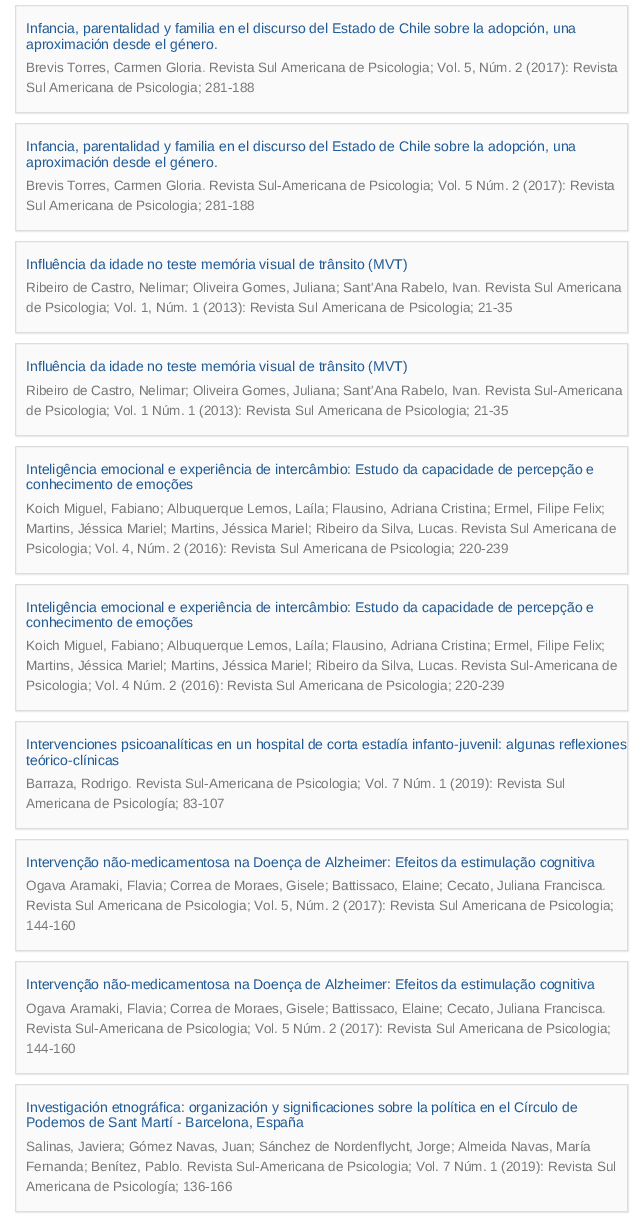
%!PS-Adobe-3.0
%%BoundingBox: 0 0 643 1219
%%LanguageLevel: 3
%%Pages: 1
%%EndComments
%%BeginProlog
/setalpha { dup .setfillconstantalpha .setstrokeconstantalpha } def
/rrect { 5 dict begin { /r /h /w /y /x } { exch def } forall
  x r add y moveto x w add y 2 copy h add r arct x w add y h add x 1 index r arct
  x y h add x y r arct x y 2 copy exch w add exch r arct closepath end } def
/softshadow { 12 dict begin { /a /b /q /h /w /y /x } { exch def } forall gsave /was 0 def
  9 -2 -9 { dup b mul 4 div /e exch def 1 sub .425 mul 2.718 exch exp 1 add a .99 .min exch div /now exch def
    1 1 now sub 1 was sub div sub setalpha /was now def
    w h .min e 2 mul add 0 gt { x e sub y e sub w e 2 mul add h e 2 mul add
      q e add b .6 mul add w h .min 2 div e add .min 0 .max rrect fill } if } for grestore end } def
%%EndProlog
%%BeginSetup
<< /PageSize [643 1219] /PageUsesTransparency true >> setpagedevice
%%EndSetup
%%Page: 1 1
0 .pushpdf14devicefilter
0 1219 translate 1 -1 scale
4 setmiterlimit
1 setgray
0 0 643 1219 rectfill
0.667 setgray
16 6 613 108 0 0.5 0.21 softshadow
0.98 setgray
newpath 15.5 5.5 moveto 627.5 5.5 lineto 627.5 112.5 lineto 15.5 112.5 lineto closepath gsave fill grestore
0.867 setgray
stroke
0.667 setgray
16 124 613 108 0 0.5 0.21 softshadow
0.98 setgray
newpath 15.5 123.5 moveto 627.5 123.5 lineto 627.5 230.5 lineto 15.5 230.5 lineto closepath gsave fill grestore
0.867 setgray
stroke
0.667 setgray
16 242 613 92 0 0.5 0.21 softshadow
0.98 setgray
newpath 15.5 241.5 moveto 627.5 241.5 lineto 627.5 332.5 lineto 15.5 332.5 lineto closepath gsave fill grestore
0.867 setgray
stroke
0.667 setgray
16 344 613 93 0 0.5 0.21 softshadow
0.98 setgray
newpath 15.5 343.5 moveto 627.5 343.5 lineto 627.5 435.5 lineto 15.5 435.5 lineto closepath gsave fill grestore
0.867 setgray
stroke
0.667 setgray
16 447 613 128 0 0.5 0.21 softshadow
0.98 setgray
newpath 15.5 446.5 moveto 627.5 446.5 lineto 627.5 573.5 lineto 15.5 573.5 lineto closepath gsave fill grestore
0.867 setgray
stroke
0.667 setgray
16 585 613 127 0 0.5 0.21 softshadow
0.98 setgray
newpath 15.5 584.5 moveto 627.5 584.5 lineto 627.5 710.5 lineto 15.5 710.5 lineto closepath gsave fill grestore
0.867 setgray
stroke
0.667 setgray
16 722 613 108 0 0.5 0.21 softshadow
0.98 setgray
newpath 15.5 721.5 moveto 627.5 721.5 lineto 627.5 828.5 lineto 15.5 828.5 lineto closepath gsave fill grestore
0.867 setgray
stroke
0.667 setgray
16 840 613 112 0 0.5 0.21 softshadow
0.98 setgray
newpath 15.5 839.5 moveto 627.5 839.5 lineto 627.5 950.5 lineto 15.5 950.5 lineto closepath gsave fill grestore
0.867 setgray
stroke
0.667 setgray
16 962 613 113 0 0.5 0.21 softshadow
0.98 setgray
newpath 15.5 961.5 moveto 627.5 961.5 lineto 627.5 1073.5 lineto 15.5 1073.5 lineto closepath gsave fill grestore
0.867 setgray
stroke
0.667 setgray
16 1085 613 128 0 0.5 0.21 softshadow
0.98 setgray
newpath 15.5 1084.5 moveto 627.5 1084.5 lineto 627.5 1211.5 lineto 15.5 1211.5 lineto closepath gsave fill grestore
0.867 setgray
stroke
/LiberationSans-Regular [14 0 0 -14 0 0] selectfont
0.129 0.357 0.584 setrgbcolor
26 33 moveto (Infancia, parentalidad y familia en el discurso del Estado de Chile sobre la adopción, una) show
26 49 moveto (aproximación desde el género.) show
/LiberationSans-Regular [13.5 0 0 -13.5 0 0] selectfont
0.467 setgray
26 72 moveto (Brevis Torres, Carmen Gloria) show
/LiberationSans-Regular [14 0 0 -14 0 0] selectfont
0.6 setgray
202 72 moveto (.) show
/LiberationSans-Regular [13.5 0 0 -13.5 0 0] selectfont
0.467 setgray
209 72 moveto (Revista Sul Americana de Psicologia; Vol. 5, Núm. 2 \(2017\): Revista) show
26 92 moveto (Sul Americana de Psicologia; 281-188) show
/LiberationSans-Regular [14 0 0 -14 0 0] selectfont
0.129 0.357 0.584 setrgbcolor
26 151 moveto (Infancia, parentalidad y familia en el discurso del Estado de Chile sobre la adopción, una) show
26 167 moveto (aproximación desde el género.) show
/LiberationSans-Regular [13.5 0 0 -13.5 0 0] selectfont
0.467 setgray
26 190 moveto (Brevis Torres, Carmen Gloria) show
/LiberationSans-Regular [14 0 0 -14 0 0] selectfont
0.6 setgray
202 190 moveto (.) show
/LiberationSans-Regular [13.5 0 0 -13.5 0 0] selectfont
0.467 setgray
209 190 moveto (Revista Sul-Americana de Psicologia; Vol. 5 Núm. 2 \(2017\): Revista) show
26 210 moveto (Sul Americana de Psicologia; 281-188) show
/LiberationSans-Regular [14 0 0 -14 0 0] selectfont
0.129 0.357 0.584 setrgbcolor
26 269 moveto (Influência da idade no teste memória visual de trânsito \(MVT\)) show
/LiberationSans-Regular [13.5 0 0 -13.5 0 0] selectfont
0.467 setgray
26 292 moveto (Ribeiro de Castro, Nelimar; Oliveira Gomes, Juliana; Sant'Ana Rabelo, Ivan) show
/LiberationSans-Regular [14 0 0 -14 0 0] selectfont
0.6 setgray
477 292 moveto (.) show
/LiberationSans-Regular [13.5 0 0 -13.5 0 0] selectfont
0.467 setgray
485 292 moveto (Revista Sul Americana) show
26 312 moveto (de Psicologia; Vol. 1, Núm. 1 \(2013\): Revista Sul Americana de Psicologia; 21-35) show
/LiberationSans-Regular [14 0 0 -14 0 0] selectfont
0.129 0.357 0.584 setrgbcolor
26 371 moveto (Influência da idade no teste memória visual de trânsito \(MVT\)) show
/LiberationSans-Regular [13.5 0 0 -13.5 0 0] selectfont
0.467 setgray
26 395 moveto (Ribeiro de Castro, Nelimar; Oliveira Gomes, Juliana; Sant'Ana Rabelo, Ivan) show
/LiberationSans-Regular [14 0 0 -14 0 0] selectfont
0.6 setgray
477 395 moveto (.) show
/LiberationSans-Regular [13.5 0 0 -13.5 0 0] selectfont
0.467 setgray
485 395 moveto (Revista Sul-Americana) show
26 415 moveto (de Psicologia; Vol. 1 Núm. 1 \(2013\): Revista Sul Americana de Psicologia; 21-35) show
/LiberationSans-Regular [14 0 0 -14 0 0] selectfont
0.129 0.357 0.584 setrgbcolor
26 474 moveto (Inteligência emocional e experiência de intercâmbio: Estudo da capacidade de percepção e) show
26 489 moveto (conhecimento de emoções) show
/LiberationSans-Regular [13.5 0 0 -13.5 0 0] selectfont
0.467 setgray
26 513 moveto (Koich Miguel, Fabiano; Albuquerque Lemos, Laíla; Flausino, Adriana Cristina; Ermel, Filipe Felix;) show
26 533 moveto (Martins, Jéssica Mariel; Martins, Jéssica Mariel; Ribeiro da Silva, Lucas) show
/LiberationSans-Regular [14 0 0 -14 0 0] selectfont
0.6 setgray
454 533 moveto (.) show
/LiberationSans-Regular [13.5 0 0 -13.5 0 0] selectfont
0.467 setgray
461 533 moveto (Revista Sul Americana de) show
26 553 moveto (Psicologia; Vol. 4, Núm. 2 \(2016\): Revista Sul Americana de Psicologia; 220-239) show
/LiberationSans-Regular [14 0 0 -14 0 0] selectfont
0.129 0.357 0.584 setrgbcolor
26 612 moveto (Inteligência emocional e experiência de intercâmbio: Estudo da capacidade de percepção e) show
26 627 moveto (conhecimento de emoções) show
/LiberationSans-Regular [13.5 0 0 -13.5 0 0] selectfont
0.467 setgray
26 650 moveto (Koich Miguel, Fabiano; Albuquerque Lemos, Laíla; Flausino, Adriana Cristina; Ermel, Filipe Felix;) show
26 670 moveto (Martins, Jéssica Mariel; Martins, Jéssica Mariel; Ribeiro da Silva, Lucas) show
/LiberationSans-Regular [14 0 0 -14 0 0] selectfont
0.6 setgray
454 670 moveto (.) show
/LiberationSans-Regular [13.5 0 0 -13.5 0 0] selectfont
0.467 setgray
461 670 moveto (Revista Sul-Americana de) show
26 690 moveto (Psicologia; Vol. 4 Núm. 2 \(2016\): Revista Sul Americana de Psicologia; 220-239) show
/LiberationSans-Regular [14 0 0 -14 0 0] selectfont
0.129 0.357 0.584 setrgbcolor
26 749 moveto (Intervenciones psicoanalíticas en un hospital de corta estadía infanto-juvenil: algunas reflexiones) show
26 765 moveto (teórico-clínicas) show
/LiberationSans-Regular [13.5 0 0 -13.5 0 0] selectfont
0.467 setgray
26 788 moveto (Barraza, Rodrigo) show
/LiberationSans-Regular [14 0 0 -14 0 0] selectfont
0.6 setgray
128 788 moveto (.) show
/LiberationSans-Regular [13.5 0 0 -13.5 0 0] selectfont
0.467 setgray
136 788 moveto (Revista Sul-Americana de Psicologia; Vol. 7 Núm. 1 \(2019\): Revista Sul) show
26 808 moveto (Americana de Psicología; 83-107) show
/LiberationSans-Regular [14 0 0 -14 0 0] selectfont
0.129 0.357 0.584 setrgbcolor
26 867 moveto (Intervenção não-medicamentosa na Doença de Alzheimer: Efeitos da estimulação cognitiva) show
/LiberationSans-Regular [13.5 0 0 -13.5 0 0] selectfont
0.467 setgray
26 890 moveto (Ogava Aramaki, Flavia; Correa de Moraes, Gisele; Battissaco, Elaine; Cecato, Juliana Francisca) show
/LiberationSans-Regular [14 0 0 -14 0 0] selectfont
0.6 setgray
602 890 moveto (.) show
/LiberationSans-Regular [13.5 0 0 -13.5 0 0] selectfont
0.467 setgray
26 910 moveto (Revista Sul Americana de Psicologia; Vol. 5, Núm. 2 \(2017\): Revista Sul Americana de Psicologia;) show
26 930 moveto (144-160) show
/LiberationSans-Regular [14 0 0 -14 0 0] selectfont
0.129 0.357 0.584 setrgbcolor
26 989 moveto (Intervenção não-medicamentosa na Doença de Alzheimer: Efeitos da estimulação cognitiva) show
/LiberationSans-Regular [13.5 0 0 -13.5 0 0] selectfont
0.467 setgray
26 1013 moveto (Ogava Aramaki, Flavia; Correa de Moraes, Gisele; Battissaco, Elaine; Cecato, Juliana Francisca) show
/LiberationSans-Regular [14 0 0 -14 0 0] selectfont
0.6 setgray
602 1013 moveto (.) show
/LiberationSans-Regular [13.5 0 0 -13.5 0 0] selectfont
0.467 setgray
26 1033 moveto (Revista Sul-Americana de Psicologia; Vol. 5 Núm. 2 \(2017\): Revista Sul Americana de Psicologia;) show
26 1053 moveto (144-160) show
/LiberationSans-Regular [14 0 0 -14 0 0] selectfont
0.129 0.357 0.584 setrgbcolor
26 1112 moveto (Investigación etnográfica: organización y significaciones sobre la política en el Círculo de) show
26 1127 moveto (Podemos de Sant Martí - Barcelona, España) show
/LiberationSans-Regular [13.5 0 0 -13.5 0 0] selectfont
0.467 setgray
26 1151 moveto (Salinas, Javiera; Gómez Navas, Juan; Sánchez de Nordenflycht, Jorge; Almeida Navas, María) show
26 1171 moveto (Fernanda; Benítez, Pablo) show
/LiberationSans-Regular [14 0 0 -14 0 0] selectfont
0.6 setgray
179 1171 moveto (.) show
/LiberationSans-Regular [13.5 0 0 -13.5 0 0] selectfont
0.467 setgray
187 1171 moveto (Revista Sul-Americana de Psicologia; Vol. 7 Núm. 1 \(2019\): Revista Sul) show
26 1191 moveto (Americana de Psicología; 136-166) show
.poppdf14devicefilter showpage
%%EOF
